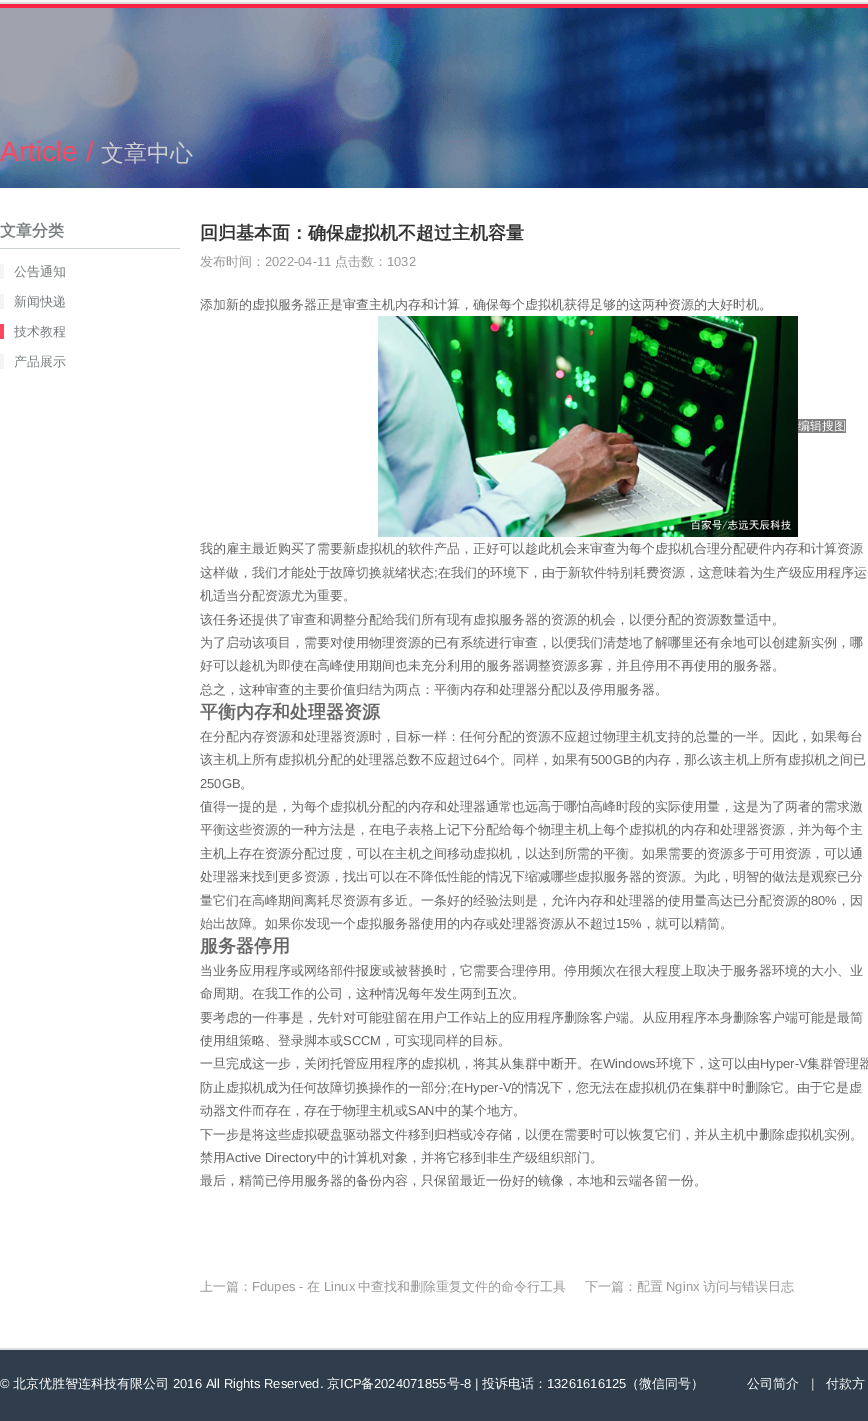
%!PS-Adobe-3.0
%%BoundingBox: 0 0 868 1421
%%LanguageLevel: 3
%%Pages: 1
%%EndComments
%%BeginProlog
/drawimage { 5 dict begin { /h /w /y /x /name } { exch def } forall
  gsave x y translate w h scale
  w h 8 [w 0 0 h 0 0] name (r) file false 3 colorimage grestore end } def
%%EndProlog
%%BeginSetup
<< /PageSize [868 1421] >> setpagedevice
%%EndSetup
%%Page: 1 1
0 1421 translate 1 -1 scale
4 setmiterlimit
1 setgray
0 0 868 1421 rectfill
0.961 setgray
0 0 868 2 rectfill
0.984 0.133 0.263 setrgbcolor
0 4 868 4 rectfill
0.867 setgray
0 2 868 2 rectfill
(images/1.raw) 0 8 868 180 drawimage
0.796 0.82 0.827 setrgbcolor
0 248 180 1 rectfill
0.957 setgray
0 264 4 15 rectfill
0 294 4 15 rectfill
1 0.271 0.376 setrgbcolor
0 324 4 15 rectfill
0.957 setgray
0 354 4 15 rectfill
(images/2.raw) 378 316 420 221 drawimage
0.502 setgray
798 419 48 14 rectfill
0.188 0.239 0.302 setrgbcolor
0 1350 868 71 rectfill
0.867 setgray
0 1348 868 2 rectfill
/LiberationSans-Regular [28 0 0 -28 0 0] selectfont
1 0.271 0.376 setrgbcolor
0 161 moveto (Article /) show
/WenQuanYiZenHei-Medium [23 0 0 -23 0 0] selectfont
0.8 setgray
101 161 moveto (文章中心) show
/WenQuanYiZenHei-Bold [16 0 0 -16 0 0] selectfont
0.478 0.498 0.506 setrgbcolor
0 236 moveto (文章分类) show
/WenQuanYiZenHei-Medium [13 0 0 -13 0 0] selectfont
14 276 moveto (公告通知) show
14 306 moveto (新闻快递) show
14 336 moveto (技术教程) show
14 366 moveto (产品展示) show
/WenQuanYiZenHei-Bold [18 0 0 -18 0 0] selectfont
0.2 setgray
200 239 moveto (回归基本面：确保虚拟机不超过主机容量) show
/WenQuanYiZenHei-Medium [13 0 0 -13 0 0] selectfont
0.6 setgray
200 266 moveto (发布时间：) show
/LiberationSans-Regular [13 0 0 -13 0 0] selectfont
265 266 moveto (2022-04-11) show
/WenQuanYiZenHei-Medium [13 0 0 -13 0 0] selectfont
335 266 moveto (点击数：) show
/LiberationSans-Regular [13 0 0 -13 0 0] selectfont
387 266 moveto (1032) show
/WenQuanYiZenHei-Medium [13 0 0 -13 0 0] selectfont
0.4 setgray
200 309 moveto (添加新的虚拟服务器正是审查主机内存和计算，确保每个虚拟机获得足够的这两种资源的大好时机。) show
/WenQuanYiZenHei-Medium [12 0 0 -12 0 0] selectfont
1 setgray
798 430 moveto (编辑搜图) show
/WenQuanYiZenHei-Medium [13 0 0 -13 0 0] selectfont
0.4 setgray
200 553 moveto (我的雇主最近购买了需要新虚拟机的软件产品，正好可以趁此机会来审查为每个虚拟机合理分配硬件内存和计算资源) show
200 577 moveto (这样做，我们才能处于故障切换就绪状态 在我们的环境下，由于新软件特别耗费资源，这意味着为生产级应用程序运) show
/LiberationSans-Regular [13 0 0 -13 0 0] selectfont
434 577 moveto (;) show
/WenQuanYiZenHei-Medium [13 0 0 -13 0 0] selectfont
200 600 moveto (机适当分配资源尤为重要。) show
200 624 moveto (该任务还提供了审查和调整分配给我们所有现有虚拟服务器的资源的机会，以便分配的资源数量适中。) show
200 647 moveto (为了启动该项目，需要对使用物理资源的已有系统进行审查，以便我们清楚地了解哪里还有余地可以创建新实例，哪) show
200 670 moveto (好可以趁机为即使在高峰使用期间也未充分利用的服务器调整资源多寡，并且停用不再使用的服务器。) show
200 694 moveto (总之，这种审查的主要价值归结为两点：平衡内存和处理器分配以及停用服务器。) show
/WenQuanYiZenHei-Bold [18 0 0 -18 0 0] selectfont
200 718 moveto (平衡内存和处理器资源) show
/WenQuanYiZenHei-Medium [13 0 0 -13 0 0] selectfont
200 741 moveto (在分配内存资源和处理器资源时，目标一样：任何分配的资源不应超过物理主机支持的总量的一半。因此，如果每台) show
200 764 moveto (该主机上所有虚拟机分配的处理器总数不应超过) show
/LiberationSans-Regular [13 0 0 -13 0 0] selectfont
473 764 moveto (64) show
/WenQuanYiZenHei-Medium [13 0 0 -13 0 0] selectfont
487 764 moveto (个。同样，如果有) show
/LiberationSans-Regular [13 0 0 -13 0 0] selectfont
591 764 moveto (500GB) show
/WenQuanYiZenHei-Medium [13 0 0 -13 0 0] selectfont
632 764 moveto (的内存，那么该主机上所有虚拟机之间已) show
/LiberationSans-Regular [13 0 0 -13 0 0] selectfont
200 788 moveto (250GB) show
/WenQuanYiZenHei-Medium [13 0 0 -13 0 0] selectfont
240 788 moveto (。) show
200 811 moveto (值得一提的是，为每个虚拟机分配的内存和处理器通常也远高于哪怕高峰时段的实际使用量，这是为了两者的需求激) show
200 834 moveto (平衡这些资源的一种方法是，在电子表格上记下分配给每个物理主机上每个虚拟机的内存和处理器资源，并为每个主) show
200 858 moveto (主机上存在资源分配过度，可以在主机之间移动虚拟机，以达到所需的平衡。如果需要的资源多于可用资源，可以通) show
200 881 moveto (处理器来找到更多资源，找出可以在不降低性能的情况下缩减哪些虚拟服务器的资源。为此，明智的做法是观察已分) show
200 905 moveto (量它们在高峰期间离耗尽资源有多近。一条好的经验法则是，允许内存和处理器的使用量高达已分配资源的) show
/LiberationSans-Regular [13 0 0 -13 0 0] selectfont
811 905 moveto (80%) show
/WenQuanYiZenHei-Medium [13 0 0 -13 0 0] selectfont
837 905 moveto (，因) show
200 928 moveto (始出故障。如果你发现一个虚拟服务器使用的内存或处理器资源从不超过) show
/LiberationSans-Regular [13 0 0 -13 0 0] selectfont
616 928 moveto (15%) show
/WenQuanYiZenHei-Medium [13 0 0 -13 0 0] selectfont
642 928 moveto (，就可以精简。) show
/WenQuanYiZenHei-Bold [18 0 0 -18 0 0] selectfont
200 952 moveto (服务器停用) show
/WenQuanYiZenHei-Medium [13 0 0 -13 0 0] selectfont
200 975 moveto (当业务应用程序或网络部件报废或被替换时，它需要合理停用。停用频次在很大程度上取决于服务器环境的大小、业) show
200 998 moveto (命周期。在我工作的公司，这种情况每年发生两到五次。) show
200 1022 moveto (要考虑的一件事是，先针对可能驻留在用户工作站上的应用程序删除客户端。从应用程序本身删除客户端可能是最简) show
200 1045 moveto (使用组策略、登录脚本或) show
/LiberationSans-Regular [13 0 0 -13 0 0] selectfont
343 1045 moveto (SCCM) show
/WenQuanYiZenHei-Medium [13 0 0 -13 0 0] selectfont
381 1045 moveto (，可实现同样的目标。) show
200 1068 moveto (一旦完成这一步，关闭托管应用程序的虚拟机，将其从集群中断开。在) show
/LiberationSans-Regular [13 0 0 -13 0 0] selectfont
603 1068 moveto (Windows) show
/WenQuanYiZenHei-Medium [13 0 0 -13 0 0] selectfont
656 1068 moveto (环境下，这可以由) show
/LiberationSans-Regular [13 0 0 -13 0 0] selectfont
760 1068 moveto (Hyper-V) show
/WenQuanYiZenHei-Medium [13 0 0 -13 0 0] selectfont
807 1068 moveto (集群管理器) show
200 1092 moveto (防止虚拟机成为任何故障切换操作的一部分 在) show
/LiberationSans-Regular [13 0 0 -13 0 0] selectfont
464 1092 moveto (Hyper-V) show
/WenQuanYiZenHei-Medium [13 0 0 -13 0 0] selectfont
511 1092 moveto (的情况下，您无法在虚拟机仍在集群中时删除它。由于它是虚) show
/LiberationSans-Regular [13 0 0 -13 0 0] selectfont
447 1092 moveto (;) show
/WenQuanYiZenHei-Medium [13 0 0 -13 0 0] selectfont
200 1115 moveto (动器文件而存在，存在于物理主机或) show
/LiberationSans-Regular [13 0 0 -13 0 0] selectfont
408 1115 moveto (SAN) show
/WenQuanYiZenHei-Medium [13 0 0 -13 0 0] selectfont
435 1115 moveto (中的某个地方。) show
200 1139 moveto (下一步是将这些虚拟硬盘驱动器文件移到归档或冷存储，以便在需要时可以恢复它们，并从主机中删除虚拟机实例。) show
200 1162 moveto (禁用) show
/LiberationSans-Regular [13 0 0 -13 0 0] selectfont
226 1162 moveto (Active Directory) show
/WenQuanYiZenHei-Medium [13 0 0 -13 0 0] selectfont
317 1162 moveto (中的计算机对象，并将它移到非生产级组织部门。) show
200 1185 moveto (最后，精简已停用服务器的备份内容，只保留最近一份好的镜像，本地和云端各留一份。) show
0.6 setgray
200 1291 moveto (上一篇：) show
/LiberationSans-Regular [13 0 0 -13 0 0] selectfont
252 1291 moveto (Fdupes -) show
/WenQuanYiZenHei-Medium [13 0 0 -13 0 0] selectfont
307 1291 moveto (在) show
/LiberationSans-Regular [13 0 0 -13 0 0] selectfont
324 1291 moveto (Linux) show
/WenQuanYiZenHei-Medium [13 0 0 -13 0 0] selectfont
358 1291 moveto (中查找和删除重复文件的命令行工具) show
585 1291 moveto (下一篇：配置) show
/LiberationSans-Regular [13 0 0 -13 0 0] selectfont
666 1291 moveto (Nginx) show
/WenQuanYiZenHei-Medium [13 0 0 -13 0 0] selectfont
703 1291 moveto (访问与错误日志) show
/LiberationSans-Regular [13 0 0 -13 0 0] selectfont
1 setgray
0 1388 moveto (©) show
/WenQuanYiZenHei-Medium [13 0 0 -13 0 0] selectfont
13 1388 moveto (北京优胜智连科技有限公司) show
/LiberationSans-Regular [13 0 0 -13 0 0] selectfont
173 1388 moveto (2016 All Rights Reserved.) show
/WenQuanYiZenHei-Medium [13 0 0 -13 0 0] selectfont
327 1388 moveto (京) show
/LiberationSans-Regular [13 0 0 -13 0 0] selectfont
340 1388 moveto (ICP) show
/WenQuanYiZenHei-Medium [13 0 0 -13 0 0] selectfont
361 1388 moveto (备) show
/LiberationSans-Regular [13 0 0 -13 0 0] selectfont
374 1388 moveto (2024071855) show
/WenQuanYiZenHei-Medium [13 0 0 -13 0 0] selectfont
447 1388 moveto (号) show
/LiberationSans-Regular [13 0 0 -13 0 0] selectfont
460 1388 moveto (-8 |) show
/WenQuanYiZenHei-Medium [13 0 0 -13 0 0] selectfont
482 1388 moveto (投诉电话：) show
/LiberationSans-Regular [13 0 0 -13 0 0] selectfont
547 1388 moveto (13261616125) show
/WenQuanYiZenHei-Medium [13 0 0 -13 0 0] selectfont
626 1388 moveto (（微信同号）) show
747 1388 moveto (公司简介) show
/LiberationSans-Regular [13 0 0 -13 0 0] selectfont
0.867 setgray
811 1388 moveto (|) show
/WenQuanYiZenHei-Medium [13 0 0 -13 0 0] selectfont
1 setgray
826 1388 moveto (付款方) show
showpage
%%EOF
